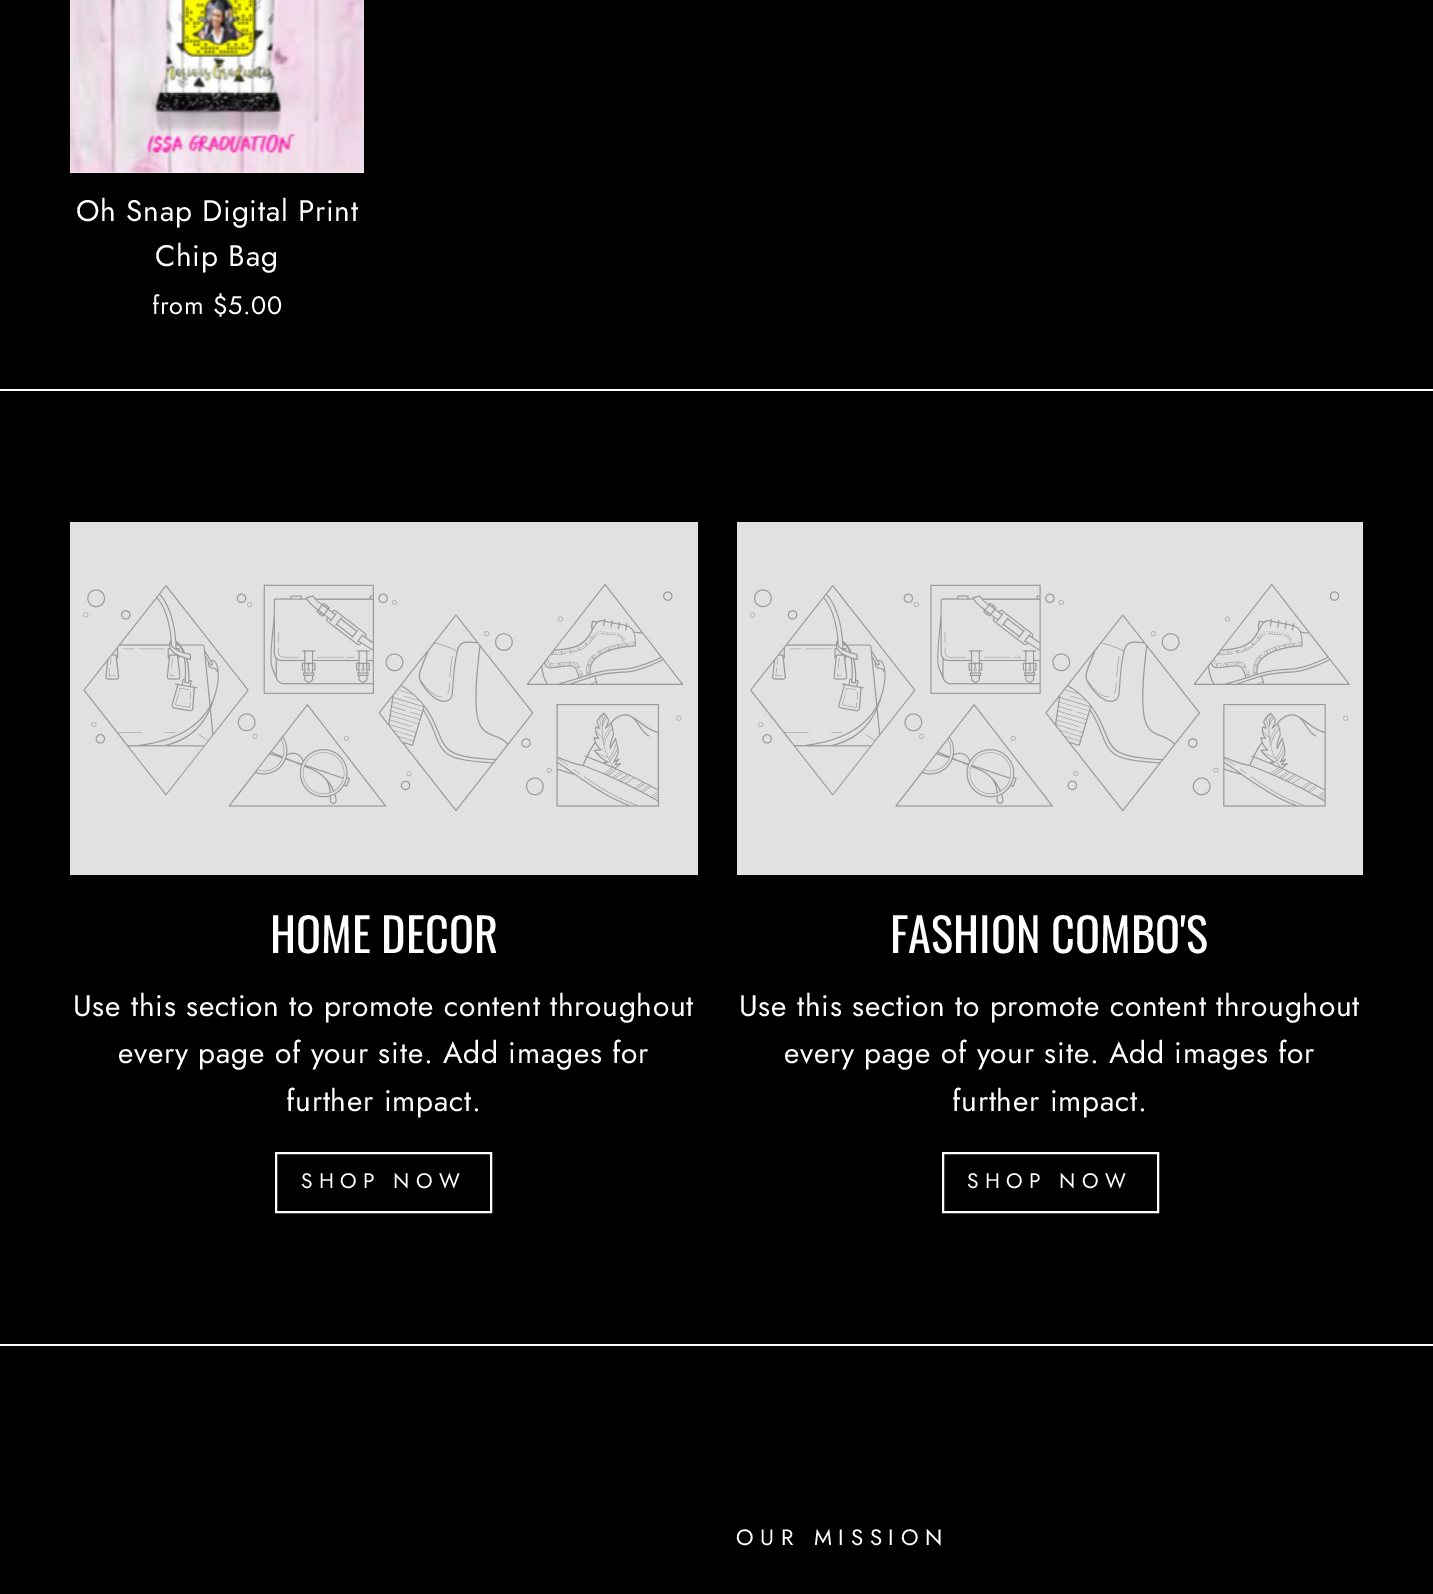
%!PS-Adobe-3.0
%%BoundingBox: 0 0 1433 1594
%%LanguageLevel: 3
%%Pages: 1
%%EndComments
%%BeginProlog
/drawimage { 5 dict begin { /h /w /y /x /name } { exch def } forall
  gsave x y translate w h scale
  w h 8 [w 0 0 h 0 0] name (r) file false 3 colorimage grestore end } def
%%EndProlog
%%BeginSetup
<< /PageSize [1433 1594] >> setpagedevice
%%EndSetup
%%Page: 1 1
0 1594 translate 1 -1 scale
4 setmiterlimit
0 setgray
0 0 1433 1594 rectfill
1 setgray
70 0 294 173 rectfill
(images/1.raw) 70 0 294 173 drawimage
0 389 1433 2 rectfill
0.882 setgray
70 522 628 353 rectfill
(images/2.raw) 83 584 600 228 drawimage
1 setgray
2 setlinewidth
276 1153 215 59 rectstroke
0.882 setgray
737 522 626 353 rectfill
(images/3.raw) 750 584 600 228 drawimage
1 setgray
943 1153 215 59 rectstroke
0 1344 1433 2 rectfill
/Jost-Regular [29.75 0 0 -29.75 0 0] selectfont
76 221 moveto 0.75 0 (Oh Snap Digital Print) ashow
155 266 moveto 0.75 0 (Chip Bag) ashow
/Jost-Regular [25.25 0 0 -25.25 0 0] selectfont
152 314 moveto 0.75 0 (from $5.00) ashow
/Oswald-Regular [46.5 0 0 -46.5 0 0] selectfont
270 953 moveto (HOME DECOR) show
/Jost-Regular [29.75 0 0 -29.75 0 0] selectfont
73 1016 moveto 0.75 0 (Use this section to promote content throughout) ashow
118 1063 moveto 0.75 0 (every page of your site. Add images for) ashow
286 1111 moveto 0.75 0 (further impact.) ashow
/Jost-Regular [21 0 0 -21 0 0] selectfont
301 1188 moveto 6.25 0 (SHOP NOW) ashow
/Oswald-Regular [46.5 0 0 -46.5 0 0] selectfont
890 953 moveto (FASHION COMBO'S) show
/Jost-Regular [29.75 0 0 -29.75 0 0] selectfont
739 1016 moveto 0.75 0 (Use this section to promote content throughout) ashow
784 1063 moveto 0.75 0 (every page of your site. Add images for) ashow
952 1111 moveto 0.75 0 (further impact.) ashow
/Jost-Regular [21 0 0 -21 0 0] selectfont
967 1188 moveto 6.25 0 (SHOP NOW) ashow
/Jost-Regular [22.25 0 0 -22.25 0 0] selectfont
736 1545 moveto 6.75 0 (OUR MISSION) ashow
showpage
%%EOF
